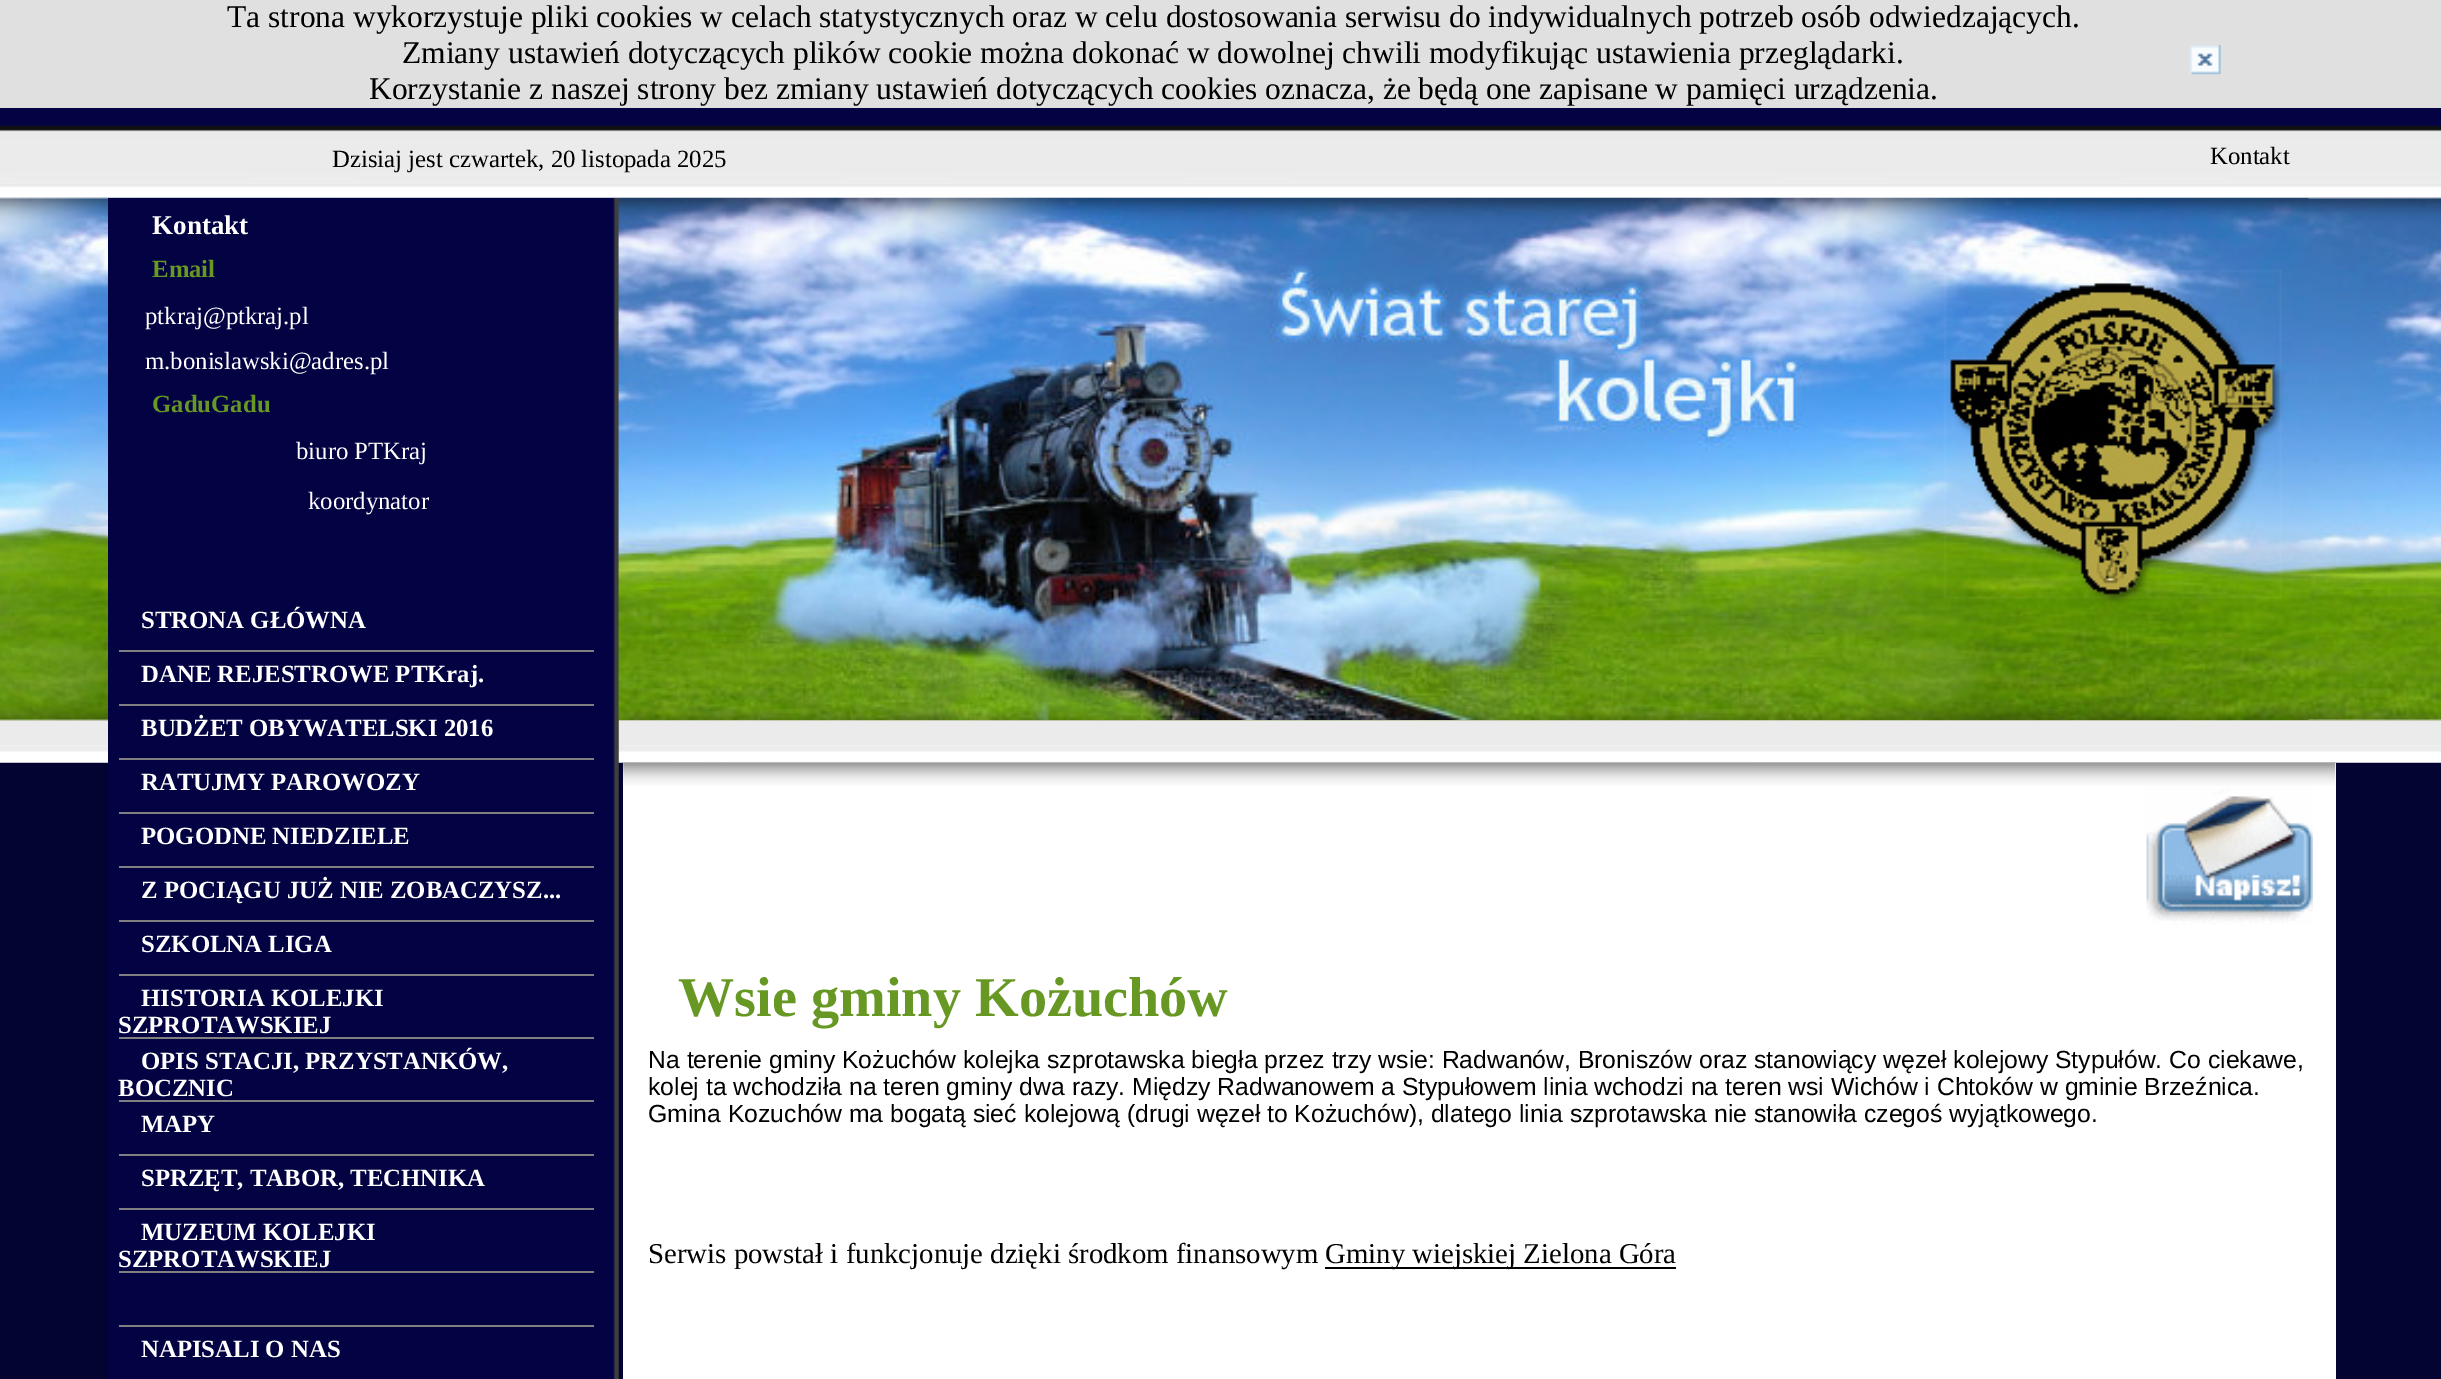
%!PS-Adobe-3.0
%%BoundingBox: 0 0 2441 1379
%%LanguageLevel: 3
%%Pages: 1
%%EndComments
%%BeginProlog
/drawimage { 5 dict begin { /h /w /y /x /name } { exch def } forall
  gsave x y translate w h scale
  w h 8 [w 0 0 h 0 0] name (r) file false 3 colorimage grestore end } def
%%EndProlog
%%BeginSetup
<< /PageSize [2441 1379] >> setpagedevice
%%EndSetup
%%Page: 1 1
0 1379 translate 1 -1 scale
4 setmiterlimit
0.878 setgray
0 0 2441 1379 rectfill
(images/1.raw) 2189 45 32 30 drawimage
0.012 0.016 0.192 setrgbcolor
0 762 2441 617 rectfill
(images/2.raw) 0 108 2441 655 drawimage
(images/3.raw) 108 198 511 1181 drawimage
0.502 setgray
119 650 475 2 rectfill
119 704 475 2 rectfill
119 758 475 2 rectfill
119 812 475 2 rectfill
119 866 475 2 rectfill
119 920 475 2 rectfill
119 974 475 2 rectfill
119 1037 475 2 rectfill
119 1100 475 2 rectfill
119 1154 475 2 rectfill
119 1208 475 2 rectfill
119 1271 475 2 rectfill
119 1325 475 2 rectfill
(images/4.raw) 618 198 1691 522 drawimage
1 setgray
623 763 1713 616 rectfill
(images/5.raw) 623 762 1713 24 drawimage
(images/6.raw) 2146 787 167 138 drawimage
0 setgray
1325 1267 351 2 rectfill
/LiberationSerif-Regular [31.5 0 0 -31.5 0 0] selectfont
227 27 moveto (Ta strona wykorzystuje pliki cookies w celach statystycznych oraz w celu dostosowania serwisu do indywidualnych potrzeb osób odwiedzających.) show
402 63 moveto (Zmiany ustawień dotyczących plików cookie można dokonać w dowolnej chwili modyfikując ustawienia przeglądarki.) show
369 99 moveto (Korzystanie z naszej strony bez zmiany ustawień dotyczących cookies oznacza, że będą one zapisane w pamięci urządzenia.) show
/LiberationSerif-Regular [24.75 0 0 -24.75 0 0] selectfont
332 167 moveto (Dzisiaj jest czwartek, 20 listopada 2025) show
2210 164 moveto (Kontakt) show
/LiberationSerif-Bold [27 0 0 -27 0 0] selectfont
1 setgray
152 234 moveto (Kontakt) show
/LiberationSerif-Bold [24.75 0 0 -24.75 0 0] selectfont
0.404 0.596 0.137 setrgbcolor
152 277 moveto (Email) show
/LiberationSerif-Regular [24.75 0 0 -24.75 0 0] selectfont
1 setgray
145 324 moveto (ptkraj@ptkraj.pl) show
145 369 moveto (m.bonislawski@adres.pl) show
/LiberationSerif-Bold [24.75 0 0 -24.75 0 0] selectfont
0.404 0.596 0.137 setrgbcolor
152 412 moveto (GaduGadu) show
/LiberationSerif-Regular [24.75 0 0 -24.75 0 0] selectfont
1 setgray
296 459 moveto (biuro PTKraj) show
308 509 moveto (koordynator) show
/LiberationSerif-Bold [24.75 0 0 -24.75 0 0] selectfont
141 628 moveto (STRONA GŁÓWNA) show
141 682 moveto (DANE REJESTROWE PTKraj.) show
141 736 moveto (BUDŻET OBYWATELSKI 2016) show
141 790 moveto (RATUJMY PAROWOZY) show
141 844 moveto (POGODNE NIEDZIELE) show
141 898 moveto (Z POCIĄGU JUŻ NIE ZOBACZYSZ...) show
141 952 moveto (SZKOLNA LIGA) show
141 1006 moveto (HISTORIA KOLEJKI) show
118 1033 moveto (SZPROTAWSKIEJ) show
141 1069 moveto (OPIS STACJI, PRZYSTANKÓW,) show
118 1096 moveto (BOCZNIC) show
141 1132 moveto (MAPY) show
141 1186 moveto (SPRZĘT, TABOR, TECHNIKA) show
141 1240 moveto (MUZEUM KOLEJKI) show
118 1267 moveto (SZPROTAWSKIEJ) show
141 1357 moveto (NAPISALI O NAS) show
/LiberationSerif-Bold [56.25 0 0 -56.25 0 0] selectfont
0.404 0.596 0.137 setrgbcolor
678 1016 moveto (Wsie gminy Kożuchów) show
/LiberationSans-Regular [24.75 0 0 -24.75 0 0] selectfont
0 setgray
648 1068 moveto (Na terenie gminy Kożuchów kolejka szprotawska biegła przez trzy wsie: Radwanów, Broniszów oraz stanowiący węzeł kolejowy Stypułów. Co ciekawe,) show
648 1095 moveto (kolej ta wchodziła na teren gminy dwa razy. Między Radwanowem a Stypułowem linia wchodzi na teren wsi Wichów i Chtoków w gminie Brzeźnica.) show
648 1122 moveto (Gmina Kozuchów ma bogatą sieć kolejową \(drugi węzeł to Kożuchów\), dlatego linia szprotawska nie stanowiła czegoś wyjątkowego.) show
/LiberationSerif-Regular [28.8 0 0 -28.8 0 0] selectfont
648 1263 moveto (Serwis powstał i funkcjonuje dzięki środkom finansowym) show
1325 1263 moveto (Gminy wiejskiej Zielona Góra) show
showpage
%%EOF
